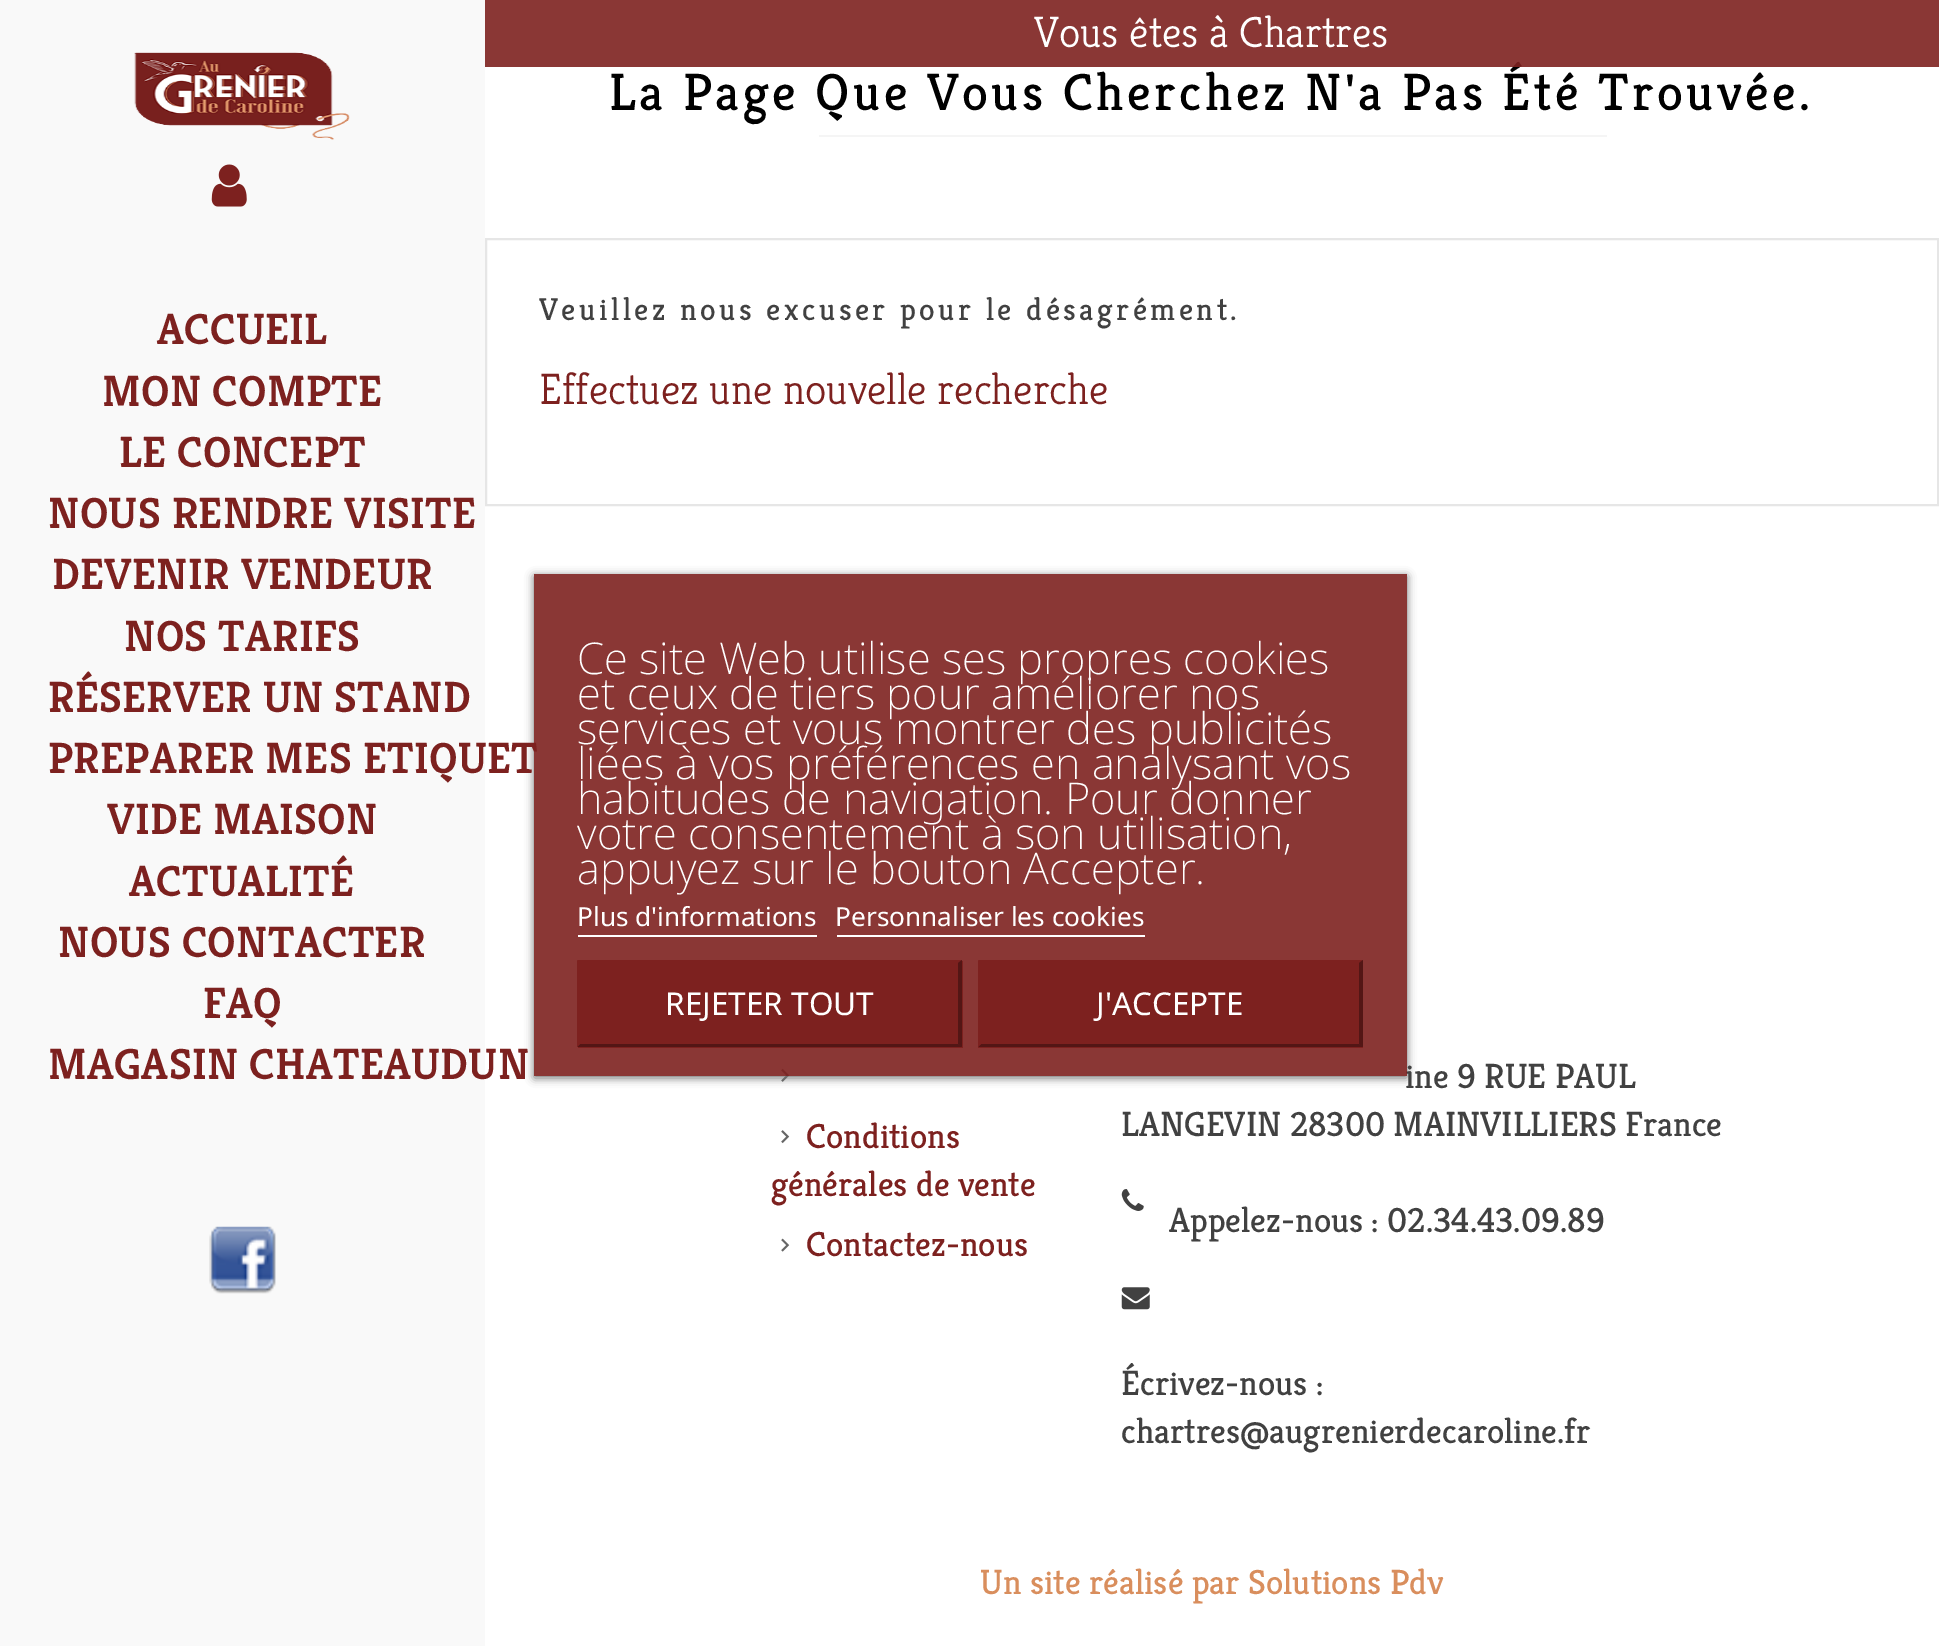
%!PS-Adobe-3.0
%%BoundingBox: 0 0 1939 1646
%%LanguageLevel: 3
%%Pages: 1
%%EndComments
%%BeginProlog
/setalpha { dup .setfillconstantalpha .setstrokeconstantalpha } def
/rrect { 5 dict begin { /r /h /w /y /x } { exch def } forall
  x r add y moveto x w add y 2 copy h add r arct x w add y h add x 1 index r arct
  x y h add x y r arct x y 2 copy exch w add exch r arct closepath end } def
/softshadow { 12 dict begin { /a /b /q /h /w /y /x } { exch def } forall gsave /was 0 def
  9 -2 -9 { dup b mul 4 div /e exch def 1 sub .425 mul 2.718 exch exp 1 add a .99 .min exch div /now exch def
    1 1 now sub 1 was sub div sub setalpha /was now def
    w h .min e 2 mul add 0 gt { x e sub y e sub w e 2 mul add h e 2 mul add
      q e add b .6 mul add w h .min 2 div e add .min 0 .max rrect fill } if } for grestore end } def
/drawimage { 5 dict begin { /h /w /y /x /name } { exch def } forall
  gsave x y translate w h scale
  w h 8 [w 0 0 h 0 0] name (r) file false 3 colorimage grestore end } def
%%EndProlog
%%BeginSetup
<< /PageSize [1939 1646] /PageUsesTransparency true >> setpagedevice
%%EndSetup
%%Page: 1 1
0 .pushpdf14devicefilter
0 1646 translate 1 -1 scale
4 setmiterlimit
1 setgray
0 0 1939 1646 rectfill
0.961 setgray
819 135 788 2 rectfill
0.902 setgray
2 setlinewidth
486 239 1452 266 rectstroke
0.976 setgray
0 0 485 1646 rectfill
(images/1.raw) 209 1226 67 68 drawimage
(images/2.raw) 134 52 216 88 drawimage
(images/3.raw) 211 164 36 43 drawimage
(images/4.raw) 781 1068 9 14 drawimage
gsave
newpath 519 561 moveto 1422 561 lineto 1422 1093 lineto 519 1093 lineto closepath 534 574 moveto 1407 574 lineto 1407 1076 lineto 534 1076 lineto closepath eoclip newpath
0.439 setgray
534 576 873 502 0 4.5 1 softshadow
grestore
(images/5.raw) 781 1130 9 14 drawimage
(images/6.raw) 781 1238 9 14 drawimage
(images/7.raw) 1121 1189 23 22 drawimage
(images/8.raw) 1121 1287 29 23 drawimage
/Kreon-Regular [52.5 0 0 -52.5 0 0] selectfont
0 setgray
609 110 moveto 3.5 0 (La Page Que Vous Cherchez N'a Pas Été Trouvée.) ashow
0.9 setalpha
0.49 0.129 0.122 setrgbcolor
485 0 1454 67 rectfill
/Kreon-Light [43.75 0 0 -43.75 0 0] selectfont
1 setalpha
1 setgray
1034 47 moveto (Vous êtes à Chartres) show
/Kreon-Regular [31.5 0 0 -31.5 0 0] selectfont
0.255 setgray
539 320 moveto 3.5 0 (Veuillez nous excuser pour le désagrément.) ashow
/Kreon-Light [43.75 0 0 -43.75 0 0] selectfont
0.49 0.129 0.122 setrgbcolor
539 404 moveto (Effectuez une nouvelle recherche) show
/Kreon-SemiBold [43.75 0 0 -43.75 0 0] selectfont
157 344 moveto 0.3 0 (ACCUEIL) ashow
102 406 moveto 0.3 0 (MON COMPTE) ashow
119 467 moveto 0.3 0 (LE CONCEPT) ashow
48 528 moveto 0.3 0 (NOUS RENDRE VISITE) ashow
52 589 moveto 0.3 0 (DEVENIR VENDEUR) ashow
124 651 moveto 0.3 0 (NOS TARIFS) ashow
48 712 moveto 0.3 0 (RÉSERVER UN STAND) ashow
48 773 moveto 0.3 0 (PREPARER MES ETIQUET) ashow
107 834 moveto 0.3 0 (VIDE MAISON) ashow
129 896 moveto 0.3 0 (ACTUALITÉ) ashow
58 957 moveto 0.3 0 (NOUS CONTACTER) ashow
203 1018 moveto 0.3 0 (FAQ) ashow
48 1079 moveto 0.3 0 (MAGASIN CHATEAUDUN) ashow
/Kreon-Regular [35 0 0 -35 0 0] selectfont
806 1148 moveto (Conditions) show
771 1196 moveto (générales de vente) show
806 1256 moveto (Contactez-nous) show
0.255 setgray
1405 1088 moveto (ine 9 RUE PAUL) show
0.9 setalpha
0.49 0.129 0.122 setrgbcolor
534 574 873 502 rectfill
/NotoSans-Regular [26.25 0 0 -26.25 0 0] selectfont
1 setalpha
1 setgray
835 926 moveto (Personnaliser les cookies) show
837 935 308 2 rectfill
577 926 moveto (Plus d'informations) show
578 935 239 2 rectfill
/NotoSans-ExtraLight [43.75 0 0 -43.75 0 0] selectfont
577 884 moveto (appuyez sur le bouton Accepter.) show
577 849 moveto (votre consentement à son utilisation,) show
577 814 moveto (habitudes de navigation. Pour donner) show
577 779 moveto (liées à vos préférences en analysant vos) show
577 744 moveto (services et vous montrer des publicités) show
577 709 moveto (et ceux de tiers pour améliorer nos) show
577 674 moveto (Ce site Web utilise ses propres cookies) show
0.49 0.129 0.122 setrgbcolor
978 961 385 87 rectfill
/NotoSans-Regular [31.5 0 0 -31.5 0 0] selectfont
1 setgray
1096 1015 moveto (J'ACCEPTE) show
0.49 0.129 0.122 setrgbcolor
newpath 978 960 moveto 1363 960 lineto 1359 963 lineto 981 963 lineto closepath fill
0.325 0.086 0.082 setrgbcolor
newpath 1363 960 moveto 1363 1047 lineto 1359 1044 lineto 1359 963 lineto closepath fill
newpath 1363 1047 moveto 978 1047 lineto 981 1044 lineto 1359 1044 lineto closepath fill
0.49 0.129 0.122 setrgbcolor
newpath 978 1047 moveto 978 960 lineto 981 963 lineto 981 1044 lineto closepath fill
578 961 385 87 rectfill
1 setgray
665 1015 moveto (REJETER TOUT) show
0.49 0.129 0.122 setrgbcolor
newpath 577 960 moveto 962 960 lineto 958 963 lineto 580 963 lineto closepath fill
0.325 0.086 0.082 setrgbcolor
newpath 962 960 moveto 962 1047 lineto 958 1044 lineto 958 963 lineto closepath fill
newpath 962 1047 moveto 577 1047 lineto 580 1044 lineto 958 1044 lineto closepath fill
0.49 0.129 0.122 setrgbcolor
newpath 577 1047 moveto 577 960 lineto 580 963 lineto 580 1044 lineto closepath fill
/Kreon-Regular [35 0 0 -35 0 0] selectfont
0.255 setgray
1121 1136 moveto (LANGEVIN 28300 MAINVILLIERS France) show
1169 1232 moveto (Appelez-nous : 02.34.43.09.89) show
1121 1395 moveto (Écrivez-nous :) show
1121 1443 moveto (chartres@augrenierdecaroline.fr) show
0.851 0.557 0.365 setrgbcolor
980 1594 moveto (Un site réalisé par Solutions Pdv) show
.poppdf14devicefilter showpage
%%EOF
